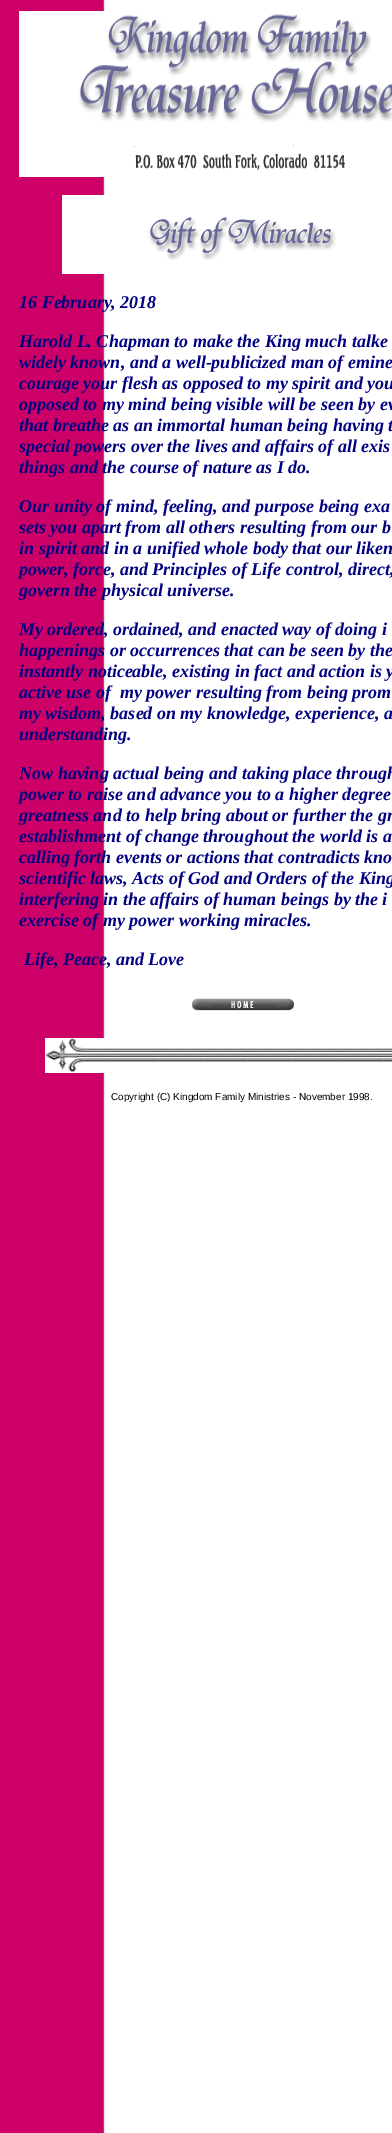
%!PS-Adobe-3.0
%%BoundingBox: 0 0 392 2133
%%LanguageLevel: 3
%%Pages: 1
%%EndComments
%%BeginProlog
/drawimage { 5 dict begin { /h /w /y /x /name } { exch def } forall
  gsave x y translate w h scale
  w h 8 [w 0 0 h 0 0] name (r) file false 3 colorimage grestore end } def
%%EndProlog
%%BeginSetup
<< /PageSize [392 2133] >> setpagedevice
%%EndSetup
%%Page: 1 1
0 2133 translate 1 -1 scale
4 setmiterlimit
1 setgray
0 0 392 2133 rectfill
(images/1.raw) 0 0 106 2133 drawimage
(images/2.raw) 19 11 373 166 drawimage
(images/3.raw) 62 195 274 79 drawimage
(images/4.raw) 192 998 102 13 drawimage
(images/5.raw) 45 1038 347 35 drawimage
/LiberationSerif-BoldItalic [18 0 0 -18 0 0] selectfont
0 0 0.502 setrgbcolor
19 308 moveto (16 February, 2018) show
19 347 moveto (Harold L. Chapman to make the King much talke) show
19 368 moveto (widely known, and a well-publicized man of emine) show
19 389 moveto (courage your flesh as opposed to my spirit and you) show
19 410 moveto (opposed to my mind being visible will be seen by ev) show
19 431 moveto (that breathe as an immortal human being having t) show
19 452 moveto (special powers over the lives and affairs of all exis) show
19 473 moveto (things and the course of nature as I do.) show
19 512 moveto (Our unity of mind, feeling, and purpose being exa) show
19 533 moveto (sets you apart from all others resulting from our b) show
19 554 moveto (in spirit and in a unified whole body that our liken) show
19 575 moveto (power, force, and Principles of Life control, direct,) show
19 596 moveto (govern the physical universe.) show
19 635 moveto (My ordered, ordained, and enacted way of doing i) show
19 656 moveto (happenings or occurrences that can be seen by the) show
19 677 moveto (instantly noticeable, existing in fact and action is y) show
19 698 moveto (active use of  my power resulting from being prom) show
19 719 moveto (my wisdom, based on my knowledge, experience, a) show
19 740 moveto (understanding.) show
19 779 moveto (Now having actual being and taking place through) show
19 800 moveto (power to raise and advance you to a higher degree) show
19 821 moveto (greatness and to help bring about or further the gr) show
19 842 moveto (establishment of change throughout the world is a) show
19 863 moveto (calling forth events or actions that contradicts kno) show
19 884 moveto (scientific laws, Acts of God and Orders of the King) show
19 905 moveto (interfering in the affairs of human beings by the i) show
19 926 moveto (exercise of my power working miracles.) show
24 965 moveto (Life, Peace, and Love) show
/LiberationSans-Regular [10 0 0 -10 0 0] selectfont
0 setgray
111 1100 moveto (Copyright \(C\) Kingdom Family Ministries - November 1998.) show
showpage
%%EOF
